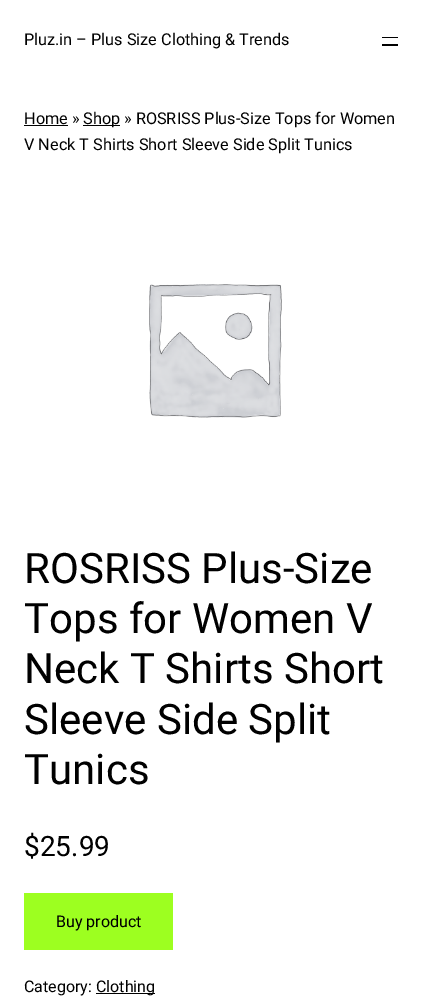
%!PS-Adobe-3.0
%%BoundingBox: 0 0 426 998
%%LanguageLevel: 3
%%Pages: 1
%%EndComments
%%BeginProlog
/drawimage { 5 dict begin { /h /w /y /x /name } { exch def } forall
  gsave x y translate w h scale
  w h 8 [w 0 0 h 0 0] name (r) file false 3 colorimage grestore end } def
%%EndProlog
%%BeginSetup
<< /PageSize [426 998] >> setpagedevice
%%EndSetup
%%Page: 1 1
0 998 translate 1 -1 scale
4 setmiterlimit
1 setgray
0 0 426 998 rectfill
0 setgray
382 37 16 1 rectfill
382 44 16 2 rectfill
24 125 44 1 rectfill
83 125 37 1 rectfill
(images/1.raw) 149 284 133 134 drawimage
0.616 1 0.125 setrgbcolor
24 893 149 57 rectfill
0 setgray
96 993 59 1 rectfill
/Roboto-Regular [16.25 0 0 -16.25 0 0] selectfont
24 45 moveto (Pluz.in – Plus Size Clothing & Trends) show
24 124 moveto (Home ») show
83 124 moveto (Shop » ROSRISS Plus-Size Tops for Women) show
24 150 moveto (V Neck T Shirts Short Sleeve Side Split Tunics) show
/Roboto-Regular [42 0 0 -42 0 0] selectfont
24 583 moveto (ROSRISS Plus-Size) show
24 633 moveto (Tops for Women V) show
24 683 moveto (Neck T Shirts Short) show
24 734 moveto (Sleeve Side Split) show
24 784 moveto (Tunics) show
/Roboto-Regular [28 0 0 -28 0 0] selectfont
24 856 moveto ($25.99) show
/Roboto-Regular [16 0 0 -16 0 0] selectfont
56 927 moveto (Buy product) show
24 992 moveto (Category:) show
96 992 moveto (Clothing) show
showpage
%%EOF
